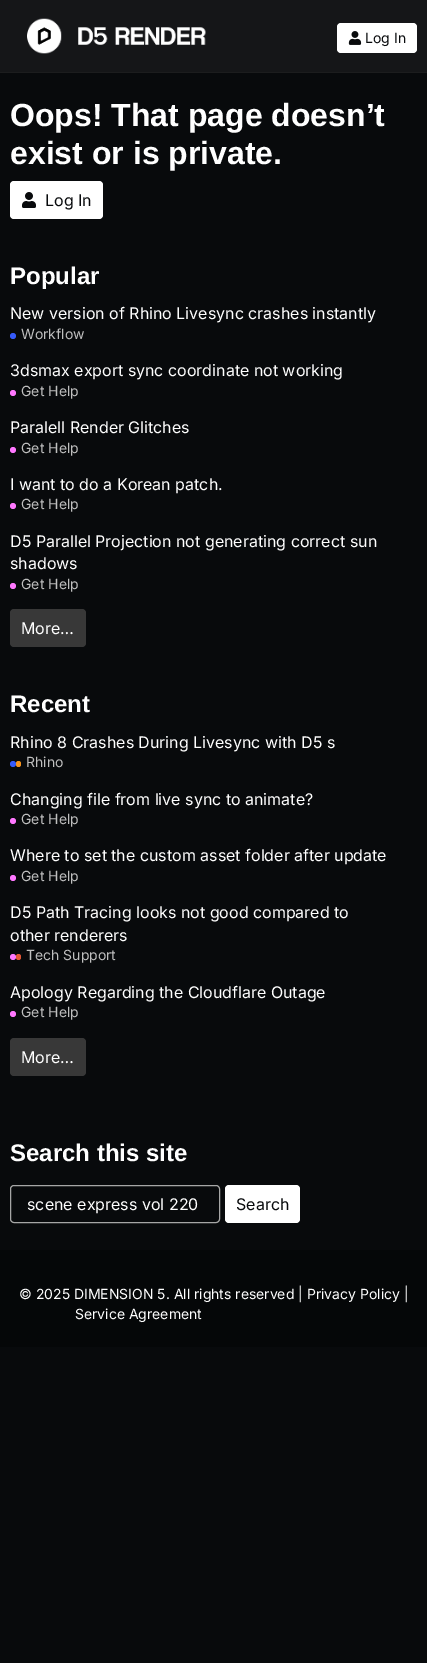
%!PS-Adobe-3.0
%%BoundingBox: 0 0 427 1663
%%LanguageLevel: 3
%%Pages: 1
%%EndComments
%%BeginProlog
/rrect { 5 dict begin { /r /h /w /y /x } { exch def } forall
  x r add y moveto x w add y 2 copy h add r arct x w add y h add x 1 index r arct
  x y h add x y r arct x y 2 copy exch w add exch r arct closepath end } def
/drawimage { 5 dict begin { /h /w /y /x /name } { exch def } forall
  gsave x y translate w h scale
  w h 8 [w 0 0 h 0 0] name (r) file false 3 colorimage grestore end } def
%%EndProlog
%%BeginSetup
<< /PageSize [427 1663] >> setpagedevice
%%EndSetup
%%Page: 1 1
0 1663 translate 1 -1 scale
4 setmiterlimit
0.031 0.039 0.047 setrgbcolor
0 0 427 1663 rectfill
0.11 0.114 0.118 setrgbcolor
0 72 427 1 rectfill
0.082 0.086 0.094 setrgbcolor
0 0 427 72 rectfill
(images/1.raw) 27 18 179 36 drawimage
1 setgray
337 23 80 30 4 rrect fill
(images/2.raw) 348 31 14 14 drawimage
10 181 93 38 4 rrect fill
(images/3.raw) 22 192 14 16 drawimage
0.208 0.353 0.976 setrgbcolor
newpath 13 336 3 0 360 arc closepath fill
1 0.467 1 setrgbcolor
newpath 13 393 3 0 360 arc closepath fill
newpath 13 450 3 0 360 arc closepath fill
newpath 13 506 3 0 360 arc closepath fill
newpath 13 586 3 0 360 arc closepath fill
0.22 setgray
10 609 76 38 4 rrect fill
0.208 0.353 0.976 setrgbcolor
newpath 13 764 3 0 360 arc closepath fill
0.969 0.58 0.114 setrgbcolor
16 761 5 6 2.5 rrect fill
1 0.467 1 setrgbcolor
newpath 13 821 3 0 360 arc closepath fill
newpath 13 878 3 0 360 arc closepath fill
newpath 13 957 3 0 360 arc closepath fill
0.894 0.341 0.208 setrgbcolor
16 954 5 6 2.5 rrect fill
1 0.467 1 setrgbcolor
newpath 13 1014 3 0 360 arc closepath fill
0.22 setgray
10 1038 76 38 4 rrect fill
0.651 setgray
10.5 1185.5 209 37 3.5 rrect stroke
1 setgray
225 1185 75 38 4 rrect fill
0.02 0.027 0.031 setrgbcolor
0 1250 427 97 rectfill
/Inter-Regular [14 0 0 -14 0 0] selectfont
0.031 0.039 0.047 setrgbcolor
365 43 moveto (Log In) show
/LiberationSans-Bold [32 0 0 -32 0 0] selectfont
1 setgray
10 126 moveto (Oops! That page doesn’t) show
10 164 moveto (exist or is private.) show
/Inter-Regular [16 0 0 -16 0 0] selectfont
0.031 0.039 0.047 setrgbcolor
45 206 moveto (Log In) show
/LiberationSans-Bold [24 0 0 -24 0 0] selectfont
1 setgray
10 284 moveto (Popular) show
/Inter-Regular [16 0 0 -16 0 0] selectfont
10 319 moveto (New version of Rhino Livesync crashes instantly) show
/Inter-Regular [14 0 0 -14 0 0] selectfont
0.749 setgray
21 339 moveto (Workflow) show
/Inter-Regular [16 0 0 -16 0 0] selectfont
1 setgray
10 376 moveto (3dsmax export sync coordinate not working) show
/Inter-Regular [14 0 0 -14 0 0] selectfont
0.749 setgray
21 396 moveto (Get Help) show
/Inter-Regular [16 0 0 -16 0 0] selectfont
1 setgray
10 433 moveto (Paralell Render Glitches) show
/Inter-Regular [14 0 0 -14 0 0] selectfont
0.749 setgray
21 453 moveto (Get Help) show
/Inter-Regular [16 0 0 -16 0 0] selectfont
1 setgray
10 490 moveto (I want to do a Korean patch.) show
/Inter-Regular [14 0 0 -14 0 0] selectfont
0.749 setgray
21 509 moveto (Get Help) show
/Inter-Regular [16 0 0 -16 0 0] selectfont
1 setgray
10 547 moveto (D5 Parallel Projection not generating correct sun) show
10 569 moveto (shadows) show
/Inter-Regular [14 0 0 -14 0 0] selectfont
0.749 setgray
21 589 moveto (Get Help) show
/Inter-Regular [16 0 0 -16 0 0] selectfont
1 setgray
21 634 moveto (More…) show
/LiberationSans-Bold [24 0 0 -24 0 0] selectfont
10 712 moveto (Recent) show
/Inter-Regular [16 0 0 -16 0 0] selectfont
10 748 moveto (Rhino 8 Crashes During Livesync with D5 s) show
/Inter-Regular [14 0 0 -14 0 0] selectfont
0.749 setgray
26 767 moveto (Rhino) show
/Inter-Regular [16 0 0 -16 0 0] selectfont
1 setgray
10 805 moveto (Changing file from live sync to animate?) show
/Inter-Regular [14 0 0 -14 0 0] selectfont
0.749 setgray
21 824 moveto (Get Help) show
/Inter-Regular [16 0 0 -16 0 0] selectfont
1 setgray
10 861 moveto (Where to set the custom asset folder after update) show
/Inter-Regular [14 0 0 -14 0 0] selectfont
0.749 setgray
21 881 moveto (Get Help) show
/Inter-Regular [16 0 0 -16 0 0] selectfont
1 setgray
10 918 moveto (D5 Path Tracing looks not good compared to) show
10 941 moveto (other renderers) show
/Inter-Regular [14 0 0 -14 0 0] selectfont
0.749 setgray
26 960 moveto (Tech Support) show
/Inter-Regular [16 0 0 -16 0 0] selectfont
1 setgray
10 998 moveto (Apology Regarding the Cloudflare Outage) show
/Inter-Regular [14 0 0 -14 0 0] selectfont
0.749 setgray
21 1017 moveto (Get Help) show
/Inter-Regular [16 0 0 -16 0 0] selectfont
1 setgray
21 1063 moveto (More…) show
/LiberationSans-Bold [24 0 0 -24 0 0] selectfont
10 1161 moveto (Search this site) show
/Inter-Regular [16 0 0 -16 0 0] selectfont
27 1210 moveto (scene express vol 220) show
0.031 0.039 0.047 setrgbcolor
236 1210 moveto (Search) show
/Inter-Regular [14 0 0 -14 0 0] selectfont
1 setgray
19 1299 moveto (© 2025 DIMENSION 5. All rights reserved | Privacy Policy |) show
75 1319 moveto (Service Agreement) show
showpage
%%EOF
